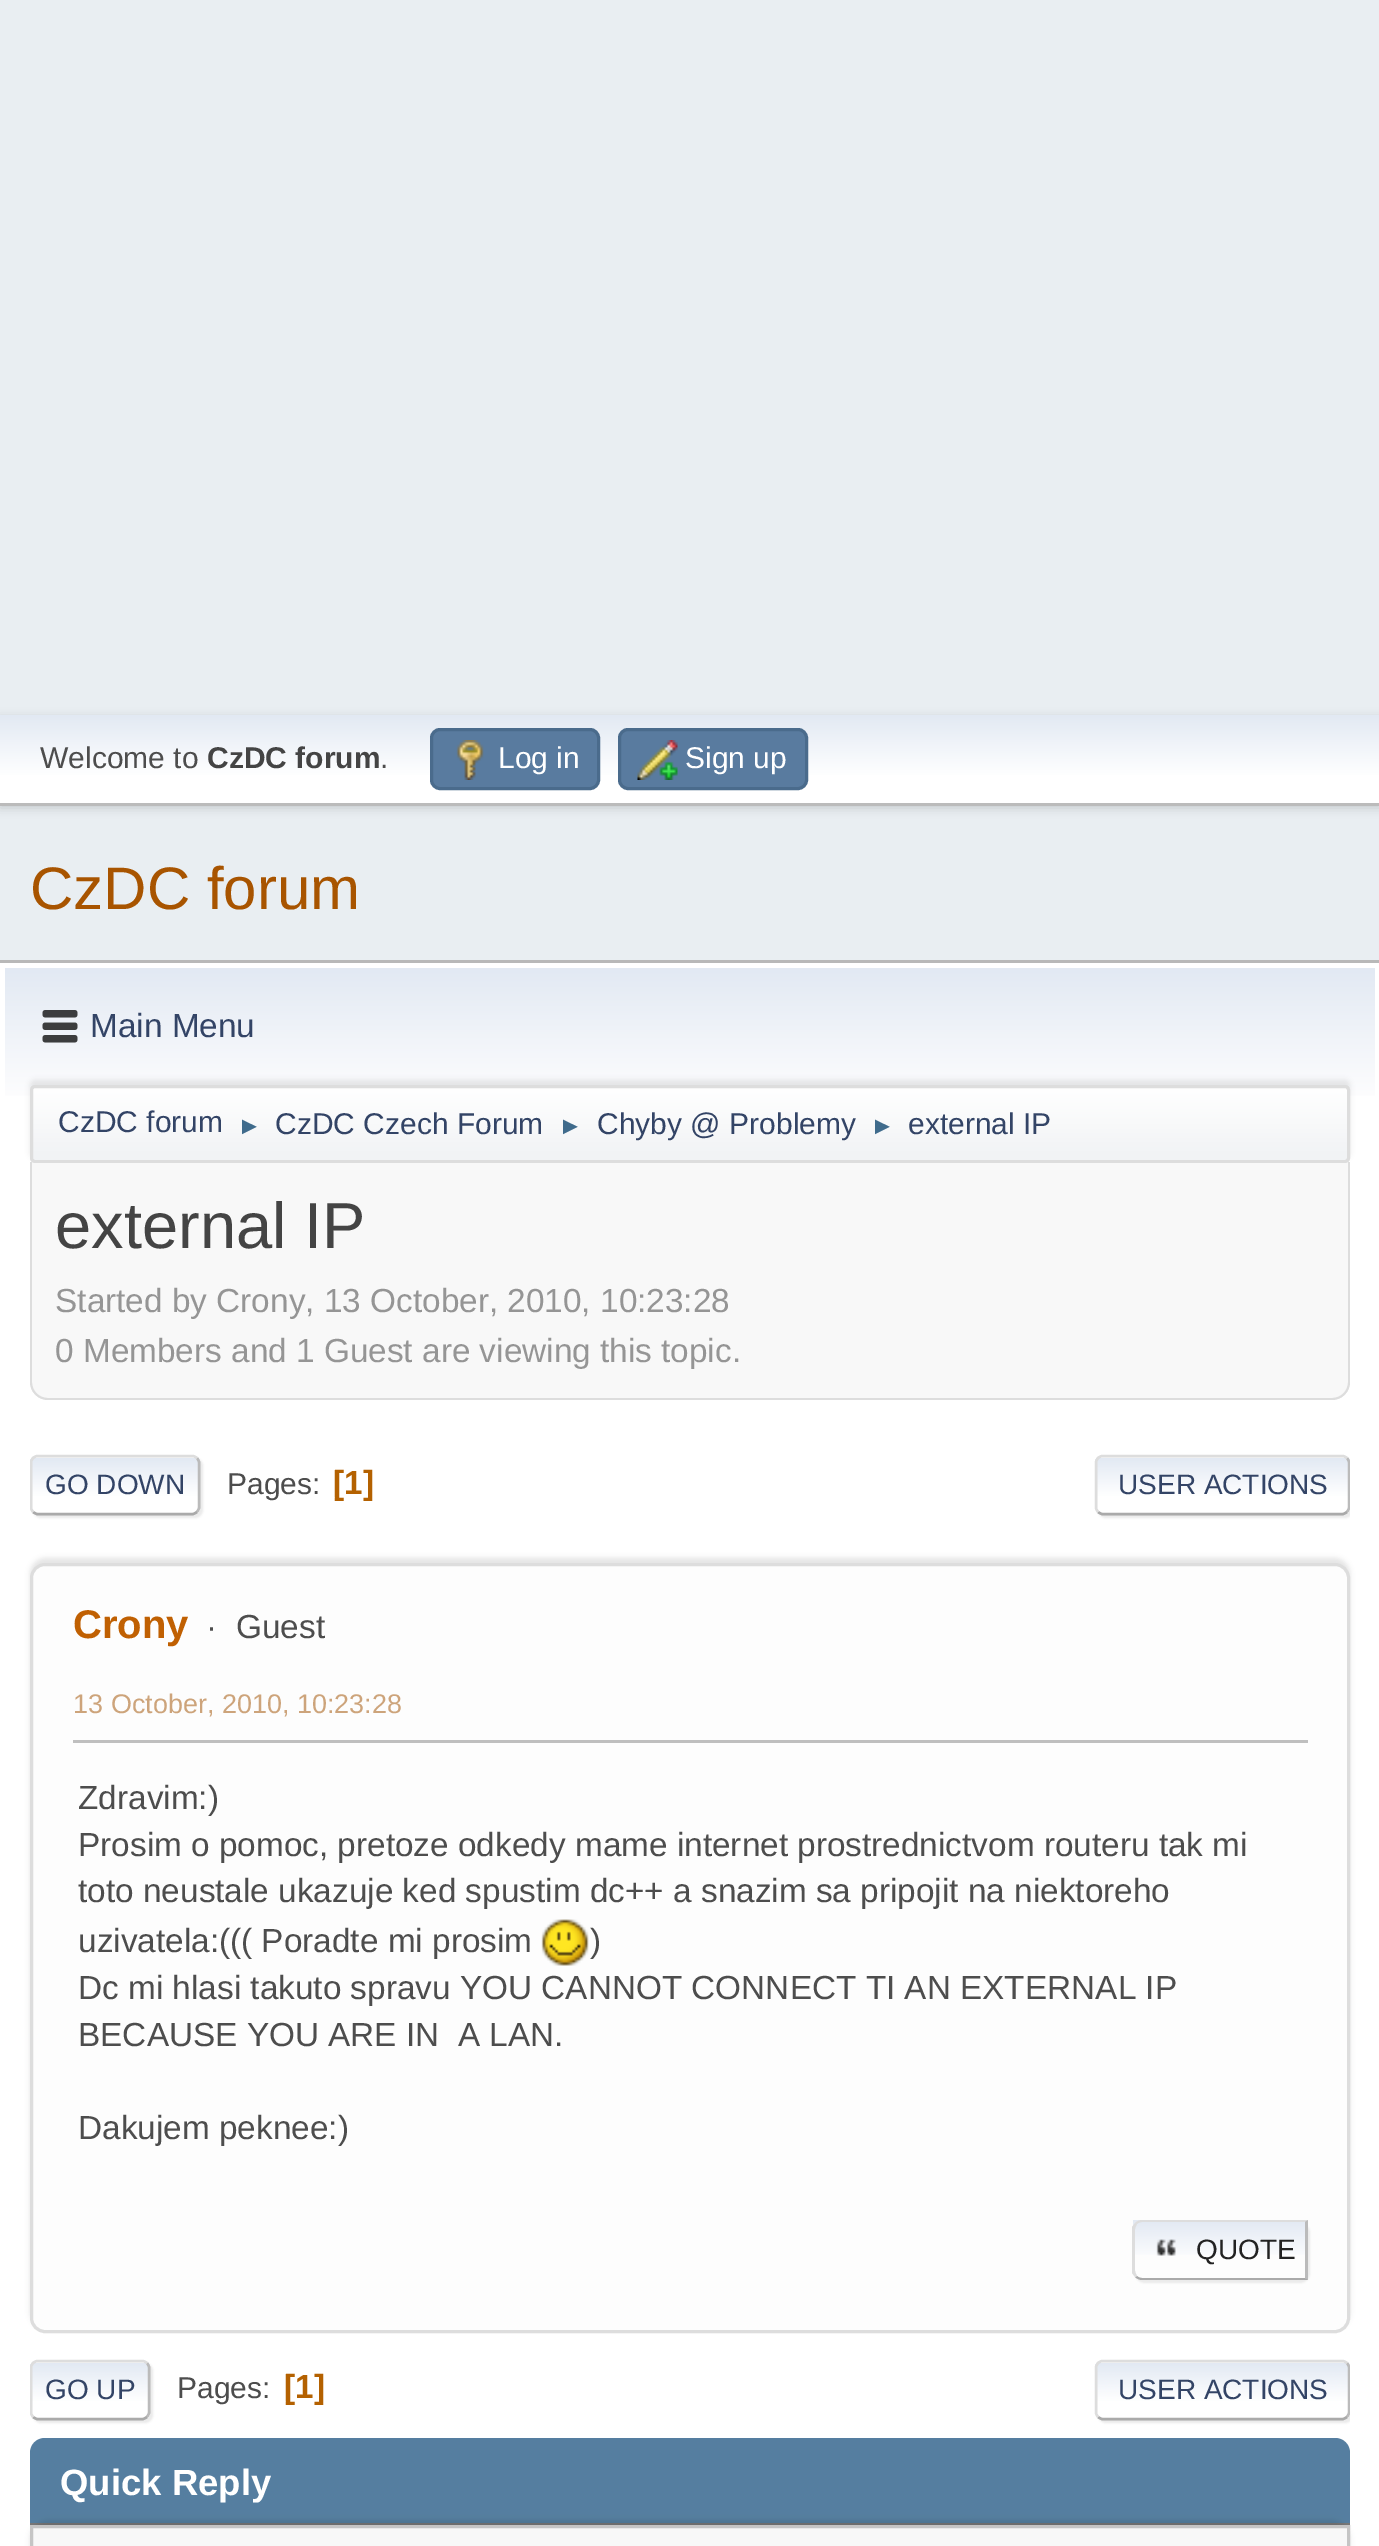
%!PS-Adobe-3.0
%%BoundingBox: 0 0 1379 2546
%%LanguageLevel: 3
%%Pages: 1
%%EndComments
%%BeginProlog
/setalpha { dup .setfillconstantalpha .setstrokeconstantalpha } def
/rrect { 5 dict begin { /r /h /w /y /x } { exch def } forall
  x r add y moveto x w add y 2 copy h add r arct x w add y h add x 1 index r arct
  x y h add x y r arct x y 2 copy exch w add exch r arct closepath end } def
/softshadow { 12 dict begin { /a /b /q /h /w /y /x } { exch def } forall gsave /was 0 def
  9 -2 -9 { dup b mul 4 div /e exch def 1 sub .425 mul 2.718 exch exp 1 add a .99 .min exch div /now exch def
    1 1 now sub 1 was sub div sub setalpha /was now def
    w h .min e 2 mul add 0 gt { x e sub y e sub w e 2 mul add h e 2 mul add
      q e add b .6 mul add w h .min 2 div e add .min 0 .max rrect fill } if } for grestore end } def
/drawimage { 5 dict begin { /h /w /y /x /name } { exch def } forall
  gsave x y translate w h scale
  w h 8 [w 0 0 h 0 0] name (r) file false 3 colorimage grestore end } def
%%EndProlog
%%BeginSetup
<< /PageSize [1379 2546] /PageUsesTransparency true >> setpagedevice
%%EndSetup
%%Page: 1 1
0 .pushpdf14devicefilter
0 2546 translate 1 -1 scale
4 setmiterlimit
0.914 0.933 0.949 setrgbcolor
0 0 1379 2546 rectfill
0 setgray
0 718 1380 90 0 5 0.16 softshadow
gsave newpath 0 715 moveto 1379 715 lineto 1379 803 lineto 0 803 lineto closepath clip newpath
<< /ShadingType 2 /ColorSpace /DeviceRGB /Coords [690 715 690 803] /Extend [true true] /Function << /FunctionType 3 /Domain [0 1] /Functions [<< /FunctionType 2 /Domain [0 1] /C0 [0.886 0.914 0.953] /C1 [1 1 1] /N 1 >> << /FunctionType 2 /Domain [0 1] /C0 [1 1 1] /C1 [1 1 1] /N 1 >>] /Bounds [0.7] /Encode [0 1 0 1] >> >> shfill grestore
0.733 setgray
0 803 1379 3 rectfill
0.349 0.482 0.624 setrgbcolor
431.5 729.5 167 59 8.5 rrect gsave fill grestore
0.29 0.42 0.549 setrgbcolor
3 setlinewidth
stroke
(images/1.raw) 456 740 28 40 drawimage
0.349 0.482 0.624 setrgbcolor
619.5 729.5 187 59 8.5 rrect gsave fill grestore
0.29 0.42 0.549 setrgbcolor
stroke
(images/2.raw) 637 740 41 40 drawimage
1 setgray
0 963 1379 1583 rectfill
0.722 setgray
0 960 1379 3 rectfill
gsave newpath 5 968 moveto 1375 968 lineto 1375 1096 lineto 5 1096 lineto closepath clip newpath
<< /ShadingType 2 /ColorSpace /DeviceRGB /Coords [690 967 690 1168] /Extend [true true] /Function << /FunctionType 3 /Domain [0 1] /Functions [<< /FunctionType 2 /Domain [0 1] /C0 [0.886 0.914 0.953] /C1 [1 1 1] /N 1 >> << /FunctionType 2 /Domain [0 1] /C0 [1 1 1] /C1 [1 1 1] /N 1 >>] /Bounds [0.7] /Encode [0 1 0 1] >> >> shfill grestore
(images/3.raw) 42 1010 36 33 drawimage
0 setgray
30 1080 1320 78 5 2.5 0.08 softshadow
gsave
30 1085 1320 78 5 rrect clip newpath
gsave newpath 30 1088 moveto 1350 1088 lineto 1350 1160 lineto 30 1160 lineto closepath clip newpath
<< /ShadingType 2 /ColorSpace /DeviceRGB /Coords [690 1087 690 1160] /Extend [true true] /Function << /FunctionType 3 /Domain [0 1] /Functions [<< /FunctionType 2 /Domain [0 1] /C0 [1 1 1] /C1 [0.945 0.953 0.961] /N 1 >> << /FunctionType 2 /Domain [0 1] /C0 [0.945 0.953 0.961] /C1 [0.945 0.953 0.961] /N 1 >>] /Bounds [0.95] /Encode [0 1 0 1] >> >> shfill grestore
grestore
0.867 setgray
31.5 1086.5 1317 75 3.5 rrect stroke
0.973 setgray
newpath 30 1163 moveto 1350 1163 lineto 1350 1382 lineto 1350 1392 1342 1400 1332 1400 curveto 48 1400 lineto 38 1400 30 1392 30 1382 curveto closepath fill
0.867 setgray
newpath 30 1162 moveto 1350 1162 lineto 1350 1382 lineto 1350 1392 1342 1400 1332 1400 curveto 48 1400 lineto 38 1400 30 1392 30 1382 curveto closepath 32 1162 moveto 1348 1162 lineto 1348 1382 lineto 1348 1391 1341 1398 1332 1398 curveto 48 1398 lineto 39 1398 32 1391 32 1382 curveto closepath eofill
33 1458 170 60 8 1 0.57 softshadow
1 setgray
30 1455 170 60 8 rrect fill
gsave
30 1455 170 60 8 rrect clip newpath
gsave newpath 30 1458 moveto 200 1458 lineto 200 1513 lineto 30 1513 lineto closepath clip newpath
<< /ShadingType 2 /ColorSpace /DeviceRGB /Coords [115 1458 115 1513] /Extend [true true] /Function << /FunctionType 3 /Domain [0 1] /Functions [<< /FunctionType 2 /Domain [0 1] /C0 [0.886 0.914 0.953] /C1 [1 1 1] /N 1 >> << /FunctionType 2 /Domain [0 1] /C0 [1 1 1] /C1 [1 1 1] /N 1 >>] /Bounds [0.7] /Encode [0 1 0 1] >> >> shfill grestore
grestore
0.733 setgray
2.5 setlinewidth
newpath 197 1458 moveto 198 1459.5 199 1461 199 1462.5 curveto 199 1507.5 lineto 199 1509 198 1510.5 197 1512 curveto stroke
0.667 setgray
newpath 197 1512 moveto 195.5 1513 194 1514 192.5 1514 curveto 37.5 1514 lineto 36 1514 34.5 1513 33 1512 curveto stroke
gsave
30 1438 1320 95 rectclip
0.867 setgray
newpath 33 1512 moveto 32 1510.5 31 1509 31 1507.5 curveto 31 1462.5 lineto 31 1461 32 1459.5 33 1458 curveto 34.5 1457 36 1456 37.5 1456 curveto 192.5 1456 lineto 194 1456 195.5 1457 197 1458 curveto stroke
grestore
gsave
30 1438 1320 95 rectclip
0.867 setgray
1098 1458 255 60 8 1 0.57 softshadow
grestore
1 setgray
1095 1455 255 60 8 rrect fill
gsave
1095 1455 255 60 8 rrect clip newpath
gsave newpath 1095 1458 moveto 1350 1458 lineto 1350 1513 lineto 1095 1513 lineto closepath clip newpath
<< /ShadingType 2 /ColorSpace /DeviceRGB /Coords [1223 1458 1223 1513] /Extend [true true] /Function << /FunctionType 3 /Domain [0 1] /Functions [<< /FunctionType 2 /Domain [0 1] /C0 [0.886 0.914 0.953] /C1 [1 1 1] /N 1 >> << /FunctionType 2 /Domain [0 1] /C0 [1 1 1] /C1 [1 1 1] /N 1 >>] /Bounds [0.7] /Encode [0 1 0 1] >> >> shfill grestore
grestore
gsave
30 1438 1320 95 rectclip
0.733 setgray
newpath 1347 1458 moveto 1348 1459.5 1349 1461 1349 1462.5 curveto 1349 1507.5 lineto 1349 1509 1348 1510.5 1347 1512 curveto stroke
grestore
0.667 setgray
newpath 1347 1512 moveto 1345.5 1513 1344 1514 1342.5 1514 curveto 1102.5 1514 lineto 1101 1514 1099.5 1513 1098 1512 curveto stroke
0.867 setgray
newpath 1098 1512 moveto 1097 1510.5 1096 1509 1096 1507.5 curveto 1096 1462.5 lineto 1096 1461 1097 1459.5 1098 1458 curveto 1099.5 1457 1101 1456 1102.5 1456 curveto 1342.5 1456 lineto 1344 1456 1345.5 1457 1347 1458 curveto stroke
0 setgray
30 1558 1320 770 15 2.5 0.1 softshadow
0.992 setgray
31.5 1564.5 1317 767 13.5 rrect gsave fill grestore
0.867 setgray
3 setlinewidth
stroke
0.749 setgray
73 1740 1235 3 rectfill
(images/4.raw) 541 1919 48 47 drawimage
gsave newpath 1133 2220 moveto 1308 2220 lineto 1308 2255 lineto 1133 2255 lineto closepath clip newpath
<< /ShadingType 2 /ColorSpace /DeviceRGB /Coords [1220 2220 1220 2280] /Extend [true true] /Function << /FunctionType 3 /Domain [0 1] /Functions [<< /FunctionType 2 /Domain [0 1] /C0 [0.886 0.914 0.953] /C1 [1 1 1] /N 1 >> << /FunctionType 2 /Domain [0 1] /C0 [1 1 1] /C1 [1 1 1] /N 1 >>] /Bounds [0.7] /Encode [0 1 0 1] >> >> shfill grestore
gsave
newpath 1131 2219 moveto 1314 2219 lineto 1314 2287 lineto 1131 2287 lineto closepath 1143 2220 moveto 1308 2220 lineto 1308 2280 lineto 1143 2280 lineto 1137.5 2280 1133 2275.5 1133 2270 curveto 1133 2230 lineto 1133 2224.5 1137.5 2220 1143 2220 curveto closepath eoclip newpath
0.867 setgray
1135 2223 175 60 10 1 0.57 softshadow
grestore
0.867 setgray
newpath 1142 2220 moveto 1140 2220 1137 2221 1135 2223 curveto 1137 2224 lineto 1138 2223 1140 2222 1142 2222 curveto 1305 2222 lineto 1308 2220 lineto closepath fill
0.733 setgray
newpath 1308 2220 moveto 1308 2280 lineto 1305 2278 lineto 1305 2222 lineto closepath fill
0.667 setgray
newpath 1308 2280 moveto 1305 2278 lineto 1142 2278 lineto 1140 2278 1138 2277 1137 2276 curveto 1135 2277 lineto 1137 2279 1140 2280 1142 2280 curveto closepath fill
0.867 setgray
newpath 1132 2227 moveto 1135 2223 lineto 1137 2224 lineto 1136 2226 1135 2228 1135 2230 curveto 1135 2270 lineto 1135 2272 1136 2274 1137 2276 curveto 1135 2277 lineto 1132 2273 lineto closepath fill
(images/5.raw) 1156 2239 20 17 drawimage
33 2363 120 60 8 1 0.57 softshadow
1 setgray
30 2360 120 60 8 rrect fill
gsave
30 2360 120 60 8 rrect clip newpath
gsave newpath 30 2363 moveto 150 2363 lineto 150 2418 lineto 30 2418 lineto closepath clip newpath
<< /ShadingType 2 /ColorSpace /DeviceRGB /Coords [90 2363 90 2418] /Extend [true true] /Function << /FunctionType 3 /Domain [0 1] /Functions [<< /FunctionType 2 /Domain [0 1] /C0 [0.886 0.914 0.953] /C1 [1 1 1] /N 1 >> << /FunctionType 2 /Domain [0 1] /C0 [1 1 1] /C1 [1 1 1] /N 1 >>] /Bounds [0.7] /Encode [0 1 0 1] >> >> shfill grestore
grestore
0.733 setgray
2.5 setlinewidth
newpath 147 2363 moveto 148 2364.5 149 2366 149 2367.5 curveto 149 2412.5 lineto 149 2414 148 2415.5 147 2417 curveto stroke
0.667 setgray
newpath 147 2417 moveto 145.5 2418 144 2419 142.5 2419 curveto 37.5 2419 lineto 36 2419 34.5 2418 33 2417 curveto stroke
gsave
30 2343 1320 95 rectclip
0.867 setgray
newpath 33 2417 moveto 32 2415.5 31 2414 31 2412.5 curveto 31 2367.5 lineto 31 2366 32 2364.5 33 2363 curveto 34.5 2362 36 2361 37.5 2361 curveto 142.5 2361 lineto 144 2361 145.5 2362 147 2363 curveto stroke
grestore
gsave
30 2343 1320 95 rectclip
0.867 setgray
1098 2363 255 60 8 1 0.57 softshadow
grestore
1 setgray
1095 2360 255 60 8 rrect fill
gsave
1095 2360 255 60 8 rrect clip newpath
gsave newpath 1095 2363 moveto 1350 2363 lineto 1350 2418 lineto 1095 2418 lineto closepath clip newpath
<< /ShadingType 2 /ColorSpace /DeviceRGB /Coords [1223 2363 1223 2418] /Extend [true true] /Function << /FunctionType 3 /Domain [0 1] /Functions [<< /FunctionType 2 /Domain [0 1] /C0 [0.886 0.914 0.953] /C1 [1 1 1] /N 1 >> << /FunctionType 2 /Domain [0 1] /C0 [1 1 1] /C1 [1 1 1] /N 1 >>] /Bounds [0.7] /Encode [0 1 0 1] >> >> shfill grestore
grestore
gsave
30 2343 1320 95 rectclip
0.733 setgray
newpath 1347 2363 moveto 1348 2364.5 1349 2366 1349 2367.5 curveto 1349 2412.5 lineto 1349 2414 1348 2415.5 1347 2417 curveto stroke
grestore
0.667 setgray
newpath 1347 2417 moveto 1345.5 2418 1344 2419 1342.5 2419 curveto 1102.5 2419 lineto 1101 2419 1099.5 2418 1098 2417 curveto stroke
0.867 setgray
newpath 1098 2417 moveto 1097 2415.5 1096 2414 1096 2412.5 curveto 1096 2367.5 lineto 1096 2366 1097 2364.5 1098 2363 curveto 1099.5 2362 1101 2361 1102.5 2361 curveto 1342.5 2361 lineto 1344 2361 1345.5 2362 1347 2363 curveto stroke
0.333 0.494 0.627 setrgbcolor
newpath 45 2438 moveto 1335 2438 lineto 1343.5 2438 1350 2444.5 1350 2453 curveto 1350 2525 lineto 30 2525 lineto 30 2453 lineto 30 2444.5 36.5 2438 45 2438 curveto closepath fill
0.467 setgray
30 2523 1320 2 rectfill
0 setgray
30 2520 1320 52 18 2.5 0.1 softshadow
0.973 setgray
newpath 31.5 2526.5 moveto 1348.5 2526.5 lineto 1348.5 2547.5 lineto 31.5 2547.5 lineto closepath gsave fill grestore
0.773 setgray
3 setlinewidth
stroke
/LiberationSans-Regular [30 0 0 -30 0 0] selectfont
0.302 setgray
40 768 moveto (Welcome to) show
/LiberationSans-Bold [30 0 0 -30 0 0] selectfont
0.267 setgray
207 768 moveto (CzDC forum) show
/LiberationSans-Regular [30 0 0 -30 0 0] selectfont
0.302 setgray
380 768 moveto (.) show
1 setgray
498 768 moveto (Log in) show
685 768 moveto (Sign up) show
/LiberationSans-Regular [60 0 0 -60 0 0] selectfont
0.659 0.329 0 setrgbcolor
30 909 moveto (CzDC forum) show
/LiberationSans-Regular [33.35 0 0 -33.35 0 0] selectfont
0.2 0.267 0.4 setrgbcolor
90 1037 moveto (Main Menu) show
/LiberationSans-Regular [30 0 0 -30 0 0] selectfont
58 1132 moveto (CzDC forum) show
/LiberationSans-Regular [25 0 0 -25 0 0] selectfont
0.247 0.42 0.549 setrgbcolor
237 1134 moveto (►) show
/LiberationSans-Regular [30 0 0 -30 0 0] selectfont
0.2 0.267 0.4 setrgbcolor
275 1134 moveto (CzDC Czech Forum) show
/LiberationSans-Regular [25 0 0 -25 0 0] selectfont
0.247 0.42 0.549 setrgbcolor
558 1134 moveto (►) show
/LiberationSans-Regular [30 0 0 -30 0 0] selectfont
0.2 0.267 0.4 setrgbcolor
597 1134 moveto (Chyby @ Problemy) show
/LiberationSans-Regular [25 0 0 -25 0 0] selectfont
0.247 0.42 0.549 setrgbcolor
870 1134 moveto (►) show
/LiberationSans-Regular [30 0 0 -30 0 0] selectfont
0.2 0.267 0.4 setrgbcolor
908 1134 moveto (external IP) show
/LiberationSans-Regular [65 0 0 -65 0 0] selectfont
0.267 setgray
55 1248 moveto (external IP) show
/LiberationSans-Regular [33.35 0 0 -33.35 0 0] selectfont
0.584 setgray
55 1312 moveto (Started by Crony, 13 October, 2010, 10:23:28) show
55 1362 moveto (0 Members and 1 Guest are viewing this topic.) show
/LiberationSans-Regular [28 0 0 -28 0 0] selectfont
0.2 0.267 0.4 setrgbcolor
45 1494 moveto (GO DOWN) show
/LiberationSans-Regular [30 0 0 -30 0 0] selectfont
0.302 setgray
227 1494 moveto (Pages:) show
/LiberationSans-Bold [33.35 0 0 -33.35 0 0] selectfont
0.706 0.38 0 setrgbcolor
333 1494 moveto ([1]) show
/LiberationSans-Regular [28 0 0 -28 0 0] selectfont
0.2 0.267 0.4 setrgbcolor
1118 1494 moveto (USER ACTIONS) show
/LiberationSans-Bold [40 0 0 -40 0 0] selectfont
0.753 0.376 0.008 setrgbcolor
73 1638 moveto (Crony) show
/LiberationSans-Regular [33.35 0 0 -33.35 0 0] selectfont
0.302 setgray
206 1638 moveto (·) show
236 1638 moveto (Guest) show
/LiberationSans-Regular [27 0 0 -27 0 0] selectfont
0.804 0.643 0.482 setrgbcolor
73 1713 moveto (13 October, 2010, 10:23:28) show
/LiberationSans-Regular [33.35 0 0 -33.35 0 0] selectfont
0.302 setgray
78 1809 moveto (Zdravim:\)) show
78 1856 moveto (Prosim o pomoc, pretoze odkedy mame internet prostrednictvom routeru tak mi) show
78 1902 moveto (toto neustale ukazuje ked spustim dc++ a snazim sa pripojit na niektoreho) show
78 1952 moveto (uzivatela:\(\(\( Poradte mi prosim) show
590 1952 moveto (\)) show
78 1999 moveto (Dc mi hlasi takuto spravu YOU CANNOT CONNECT TI AN EXTERNAL IP) show
78 2046 moveto (BECAUSE YOU ARE IN  A LAN.) show
78 2139 moveto (Dakujem peknee:\)) show
/LiberationSans-Regular [28 0 0 -28 0 0] selectfont
0.133 setgray
1196 2259 moveto (QUOTE) show
0.2 0.267 0.4 setrgbcolor
45 2399 moveto (GO UP) show
/LiberationSans-Regular [30 0 0 -30 0 0] selectfont
0.302 setgray
177 2398 moveto (Pages:) show
/LiberationSans-Bold [33.35 0 0 -33.35 0 0] selectfont
0.706 0.38 0 setrgbcolor
284 2398 moveto ([1]) show
/LiberationSans-Regular [28 0 0 -28 0 0] selectfont
0.2 0.267 0.4 setrgbcolor
1118 2399 moveto (USER ACTIONS) show
/LiberationSans-Bold [36.5 0 0 -36.5 0 0] selectfont
1 setgray
60 2495 moveto (Quick Reply) show
.poppdf14devicefilter showpage
%%EOF
